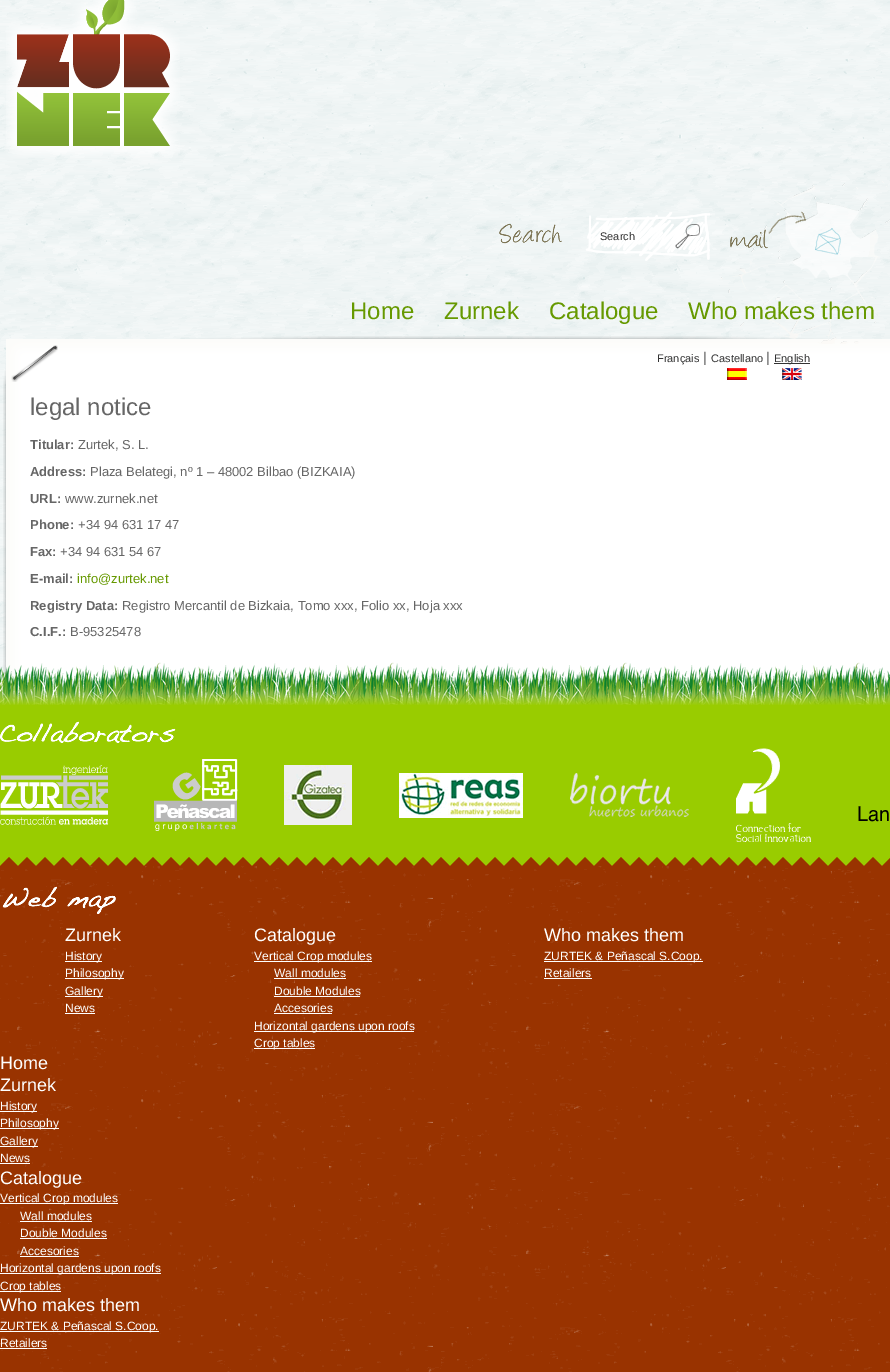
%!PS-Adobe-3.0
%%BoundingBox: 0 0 890 1372
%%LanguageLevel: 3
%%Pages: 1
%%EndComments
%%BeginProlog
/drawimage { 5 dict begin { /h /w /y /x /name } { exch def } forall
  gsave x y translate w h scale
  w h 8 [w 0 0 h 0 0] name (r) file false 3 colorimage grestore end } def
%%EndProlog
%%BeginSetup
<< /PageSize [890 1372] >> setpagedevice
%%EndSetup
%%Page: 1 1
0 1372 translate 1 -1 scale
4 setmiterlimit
1 setgray
0 0 890 1372 rectfill
(images/1.raw) 0 0 890 691 drawimage
(images/2.raw) 6 0 174 158 drawimage
(images/3.raw) 499 224 63 20 drawimage
(images/4.raw) 586 212 124 49 drawimage
(images/5.raw) 675 224 25 25 drawimage
(images/8.raw) 3 336 887 48 drawimage
(images/6.raw) 721 181 169 163 drawimage
(images/7.raw) 730 211 77 38 drawimage
0.2 setgray
774 363 36 1 rectfill
(images/9.raw) 727 368 20 12 drawimage
(images/10.raw) 782 368 20 12 drawimage
(images/11.raw) 3 384 887 297 drawimage
0.6 0.8 0 setrgbcolor
0 705 890 161 rectfill
(images/12.raw) 0 662 890 43 drawimage
(images/13.raw) 0 721 176 22 drawimage
(images/14.raw) 0 748 889 94 drawimage
(images/15.raw) 0 866 890 506 drawimage
(images/16.raw) 0 857 890 9 drawimage
(images/17.raw) 2 886 114 28 drawimage
1 setgray
65 961 37 1 rectfill
65 978 59 1 rectfill
65 996 38 1 rectfill
65 1013 30 1 rectfill
254 961 118 1 rectfill
274 978 72 1 rectfill
274 996 86 1 rectfill
274 1013 58 1 rectfill
254 1031 160 1 rectfill
254 1048 61 1 rectfill
544 961 159 1 rectfill
544 978 48 1 rectfill
0 1111 37 1 rectfill
0 1128 59 1 rectfill
0 1146 38 1 rectfill
0 1163 30 1 rectfill
0 1203 118 1 rectfill
20 1221 72 1 rectfill
20 1238 87 1 rectfill
20 1256 59 1 rectfill
0 1273 161 1 rectfill
0 1291 61 1 rectfill
0 1331 159 1 rectfill
0 1348 47 1 rectfill
/LiberationSans-Regular [11 0 0 -11 0 0] selectfont
0.2 setgray
600 240 moveto (Search) show
/LiberationSans-Regular [24 0 0 -24 0 0] selectfont
0.4 0.6 0 setrgbcolor
350 319 moveto (Home) show
444 319 moveto (Zurnek) show
549 319 moveto (Catalogue) show
688 319 moveto (Who makes them) show
/LiberationSans-Regular [11 0 0 -11 0 0] selectfont
0.2 setgray
657 362 moveto (Français) show
/LiberationSans-Regular [14 0 0 -14 0 0] selectfont
0.4 setgray
703 362 moveto (|) show
/LiberationSans-Regular [11 0 0 -11 0 0] selectfont
0.2 setgray
711 362 moveto (Castellano) show
/LiberationSans-Regular [14 0 0 -14 0 0] selectfont
0.4 setgray
766 362 moveto (|) show
/LiberationSans-Regular [11 0 0 -11 0 0] selectfont
0.2 setgray
774 362 moveto (English) show
/LiberationSans-Regular [24 0 0 -24 0 0] selectfont
0.4 setgray
30 415 moveto (legal notice) show
/LiberationSans-Bold [13 0 0 -13 0 0] selectfont
30 449 moveto (Titular:) show
/LiberationSans-Regular [13 0 0 -13 0 0] selectfont
78 449 moveto (Zurtek, S. L.) show
/LiberationSans-Bold [13 0 0 -13 0 0] selectfont
30 476 moveto (Address:) show
/LiberationSans-Regular [13 0 0 -13 0 0] selectfont
90 476 moveto (Plaza Belategi, nº 1 – 48002 Bilbao \(BIZKAIA\)) show
/LiberationSans-Bold [13 0 0 -13 0 0] selectfont
30 503 moveto (URL:) show
/LiberationSans-Regular [13 0 0 -13 0 0] selectfont
65 503 moveto (www.zurnek.net) show
/LiberationSans-Bold [13 0 0 -13 0 0] selectfont
30 529 moveto (Phone:) show
/LiberationSans-Regular [13 0 0 -13 0 0] selectfont
78 529 moveto (+34 94 631 17 47) show
/LiberationSans-Bold [13 0 0 -13 0 0] selectfont
30 556 moveto (Fax:) show
/LiberationSans-Regular [13 0 0 -13 0 0] selectfont
60 556 moveto (+34 94 631 54 67) show
/LiberationSans-Bold [13 0 0 -13 0 0] selectfont
30 583 moveto (E-mail:) show
/LiberationSans-Regular [13 0 0 -13 0 0] selectfont
0.4 0.6 0 setrgbcolor
77 583 moveto (info@zurtek.net) show
/LiberationSans-Bold [13 0 0 -13 0 0] selectfont
0.4 setgray
30 610 moveto (Registry Data:) show
/LiberationSans-Regular [13 0 0 -13 0 0] selectfont
122 610 moveto (Registro Mercantil de Bizkaia, Tomo xxx, Folio xx, Hoja xxx) show
/LiberationSans-Bold [13 0 0 -13 0 0] selectfont
30 636 moveto (C.I.F.:) show
/LiberationSans-Regular [13 0 0 -13 0 0] selectfont
70 636 moveto (B-95325478) show
/LiberationSans-Regular [18 0 0 -18 0 0] selectfont
1 setgray
65 941 moveto (Zurnek) show
/LiberationSans-Regular [12 0 0 -12 0 0] selectfont
65 960 moveto (History) show
65 977 moveto (Philosophy) show
65 995 moveto (Gallery) show
65 1012 moveto (News) show
/LiberationSans-Regular [18 0 0 -18 0 0] selectfont
254 941 moveto (Catalogue) show
/LiberationSans-Regular [12 0 0 -12 0 0] selectfont
254 960 moveto (Vertical Crop modules) show
274 977 moveto (Wall modules) show
274 995 moveto (Double Modules) show
274 1012 moveto (Accesories) show
254 1030 moveto (Horizontal gardens upon roofs) show
254 1047 moveto (Crop tables) show
/LiberationSans-Regular [18 0 0 -18 0 0] selectfont
544 941 moveto (Who makes them) show
/LiberationSans-Regular [12 0 0 -12 0 0] selectfont
544 960 moveto (ZURTEK & Peñascal S.Coop.) show
544 977 moveto (Retailers) show
/LiberationSans-Regular [18 0 0 -18 0 0] selectfont
0 1069 moveto (Home) show
0 1091 moveto (Zurnek) show
/LiberationSans-Regular [12 0 0 -12 0 0] selectfont
0 1110 moveto (History) show
0 1127 moveto (Philosophy) show
0 1145 moveto (Gallery) show
0 1162 moveto (News) show
/LiberationSans-Regular [18 0 0 -18 0 0] selectfont
0 1184 moveto (Catalogue) show
/LiberationSans-Regular [12 0 0 -12 0 0] selectfont
0 1202 moveto (Vertical Crop modules) show
20 1220 moveto (Wall modules) show
20 1237 moveto (Double Modules) show
20 1255 moveto (Accesories) show
0 1272 moveto (Horizontal gardens upon roofs) show
0 1290 moveto (Crop tables) show
/LiberationSans-Regular [18 0 0 -18 0 0] selectfont
0 1311 moveto (Who makes them) show
/LiberationSans-Regular [12 0 0 -12 0 0] selectfont
0 1330 moveto (ZURTEK & Peñascal S.Coop.) show
0 1347 moveto (Retailers) show
showpage
%%EOF
